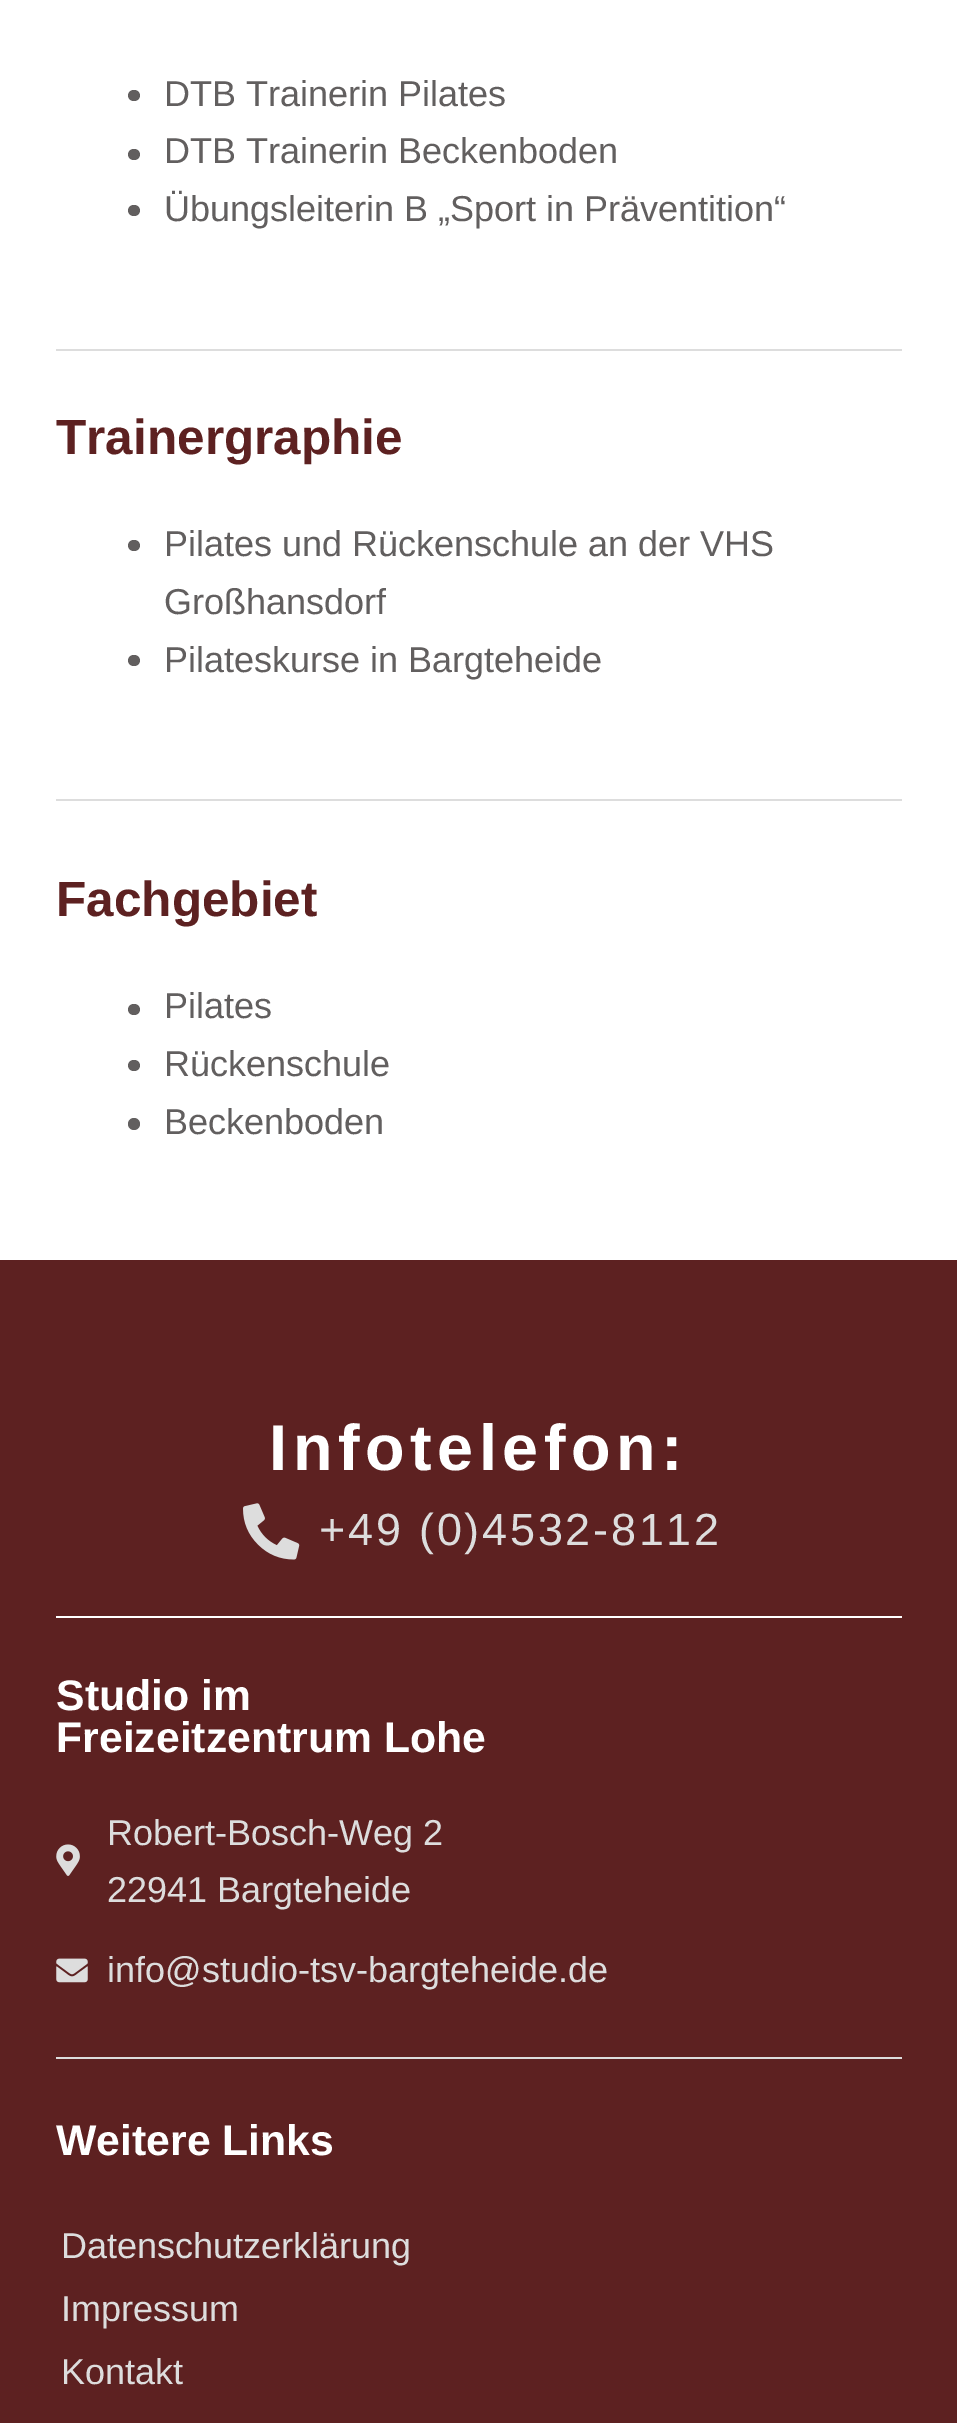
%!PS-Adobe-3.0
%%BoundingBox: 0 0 957 2423
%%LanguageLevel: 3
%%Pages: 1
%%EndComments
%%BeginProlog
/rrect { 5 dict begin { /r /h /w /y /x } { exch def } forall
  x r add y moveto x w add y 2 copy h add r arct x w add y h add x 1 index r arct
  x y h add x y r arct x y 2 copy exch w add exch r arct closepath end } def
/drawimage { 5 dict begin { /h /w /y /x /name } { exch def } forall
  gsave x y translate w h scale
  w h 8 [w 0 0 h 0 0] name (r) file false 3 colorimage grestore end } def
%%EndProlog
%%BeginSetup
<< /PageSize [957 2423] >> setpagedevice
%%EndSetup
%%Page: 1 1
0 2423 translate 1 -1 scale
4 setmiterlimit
1 setgray
0 0 957 2423 rectfill
0.384 0.373 0.373 setrgbcolor
128 90 12 11 5.5 rrect fill
128 149 12 11 5.5 rrect fill
128 205 12 11 5.5 rrect fill
0.867 setgray
56 349 846 2 rectfill
0.384 0.373 0.373 setrgbcolor
128 540 12 11 5.5 rrect fill
128 655 12 11 5.5 rrect fill
0.867 setgray
56 799 846 2 rectfill
0.384 0.373 0.373 setrgbcolor
128 1004 12 11 5.5 rrect fill
128 1060 12 11 5.5 rrect fill
newpath 134 1124 6 0 360 arc closepath fill
0.365 0.129 0.129 setrgbcolor
0 1260 957 1163 rectfill
1 setgray
56 1616 846 2 rectfill
(images/1.raw) 243 1503 57 57 drawimage
(images/2.raw) 56 1844 24 32 drawimage
(images/3.raw) 56 1958 32 25 drawimage
0.867 setgray
56 2057 846 2 rectfill
/LiberationSans-Regular [36 0 0 -36 0 0] selectfont
0.384 0.373 0.373 setrgbcolor
164 106 moveto (DTB Trainerin Pilates) show
164 163 moveto (DTB Trainerin Beckenboden) show
164 221 moveto (Übungsleiterin B „Sport in Präventition“) show
/LiberationSans-Bold [49.5 0 0 -49.5 0 0] selectfont
0.365 0.129 0.129 setrgbcolor
56 454 moveto (Trainergraphie) show
/LiberationSans-Regular [36 0 0 -36 0 0] selectfont
0.384 0.373 0.373 setrgbcolor
164 556 moveto (Pilates und Rückenschule an der VHS) show
164 614 moveto (Großhansdorf) show
164 672 moveto (Pilateskurse in Bargteheide) show
/LiberationSans-Bold [49.5 0 0 -49.5 0 0] selectfont
0.365 0.129 0.129 setrgbcolor
56 916 moveto (Fachgebiet) show
/LiberationSans-Regular [36 0 0 -36 0 0] selectfont
0.384 0.373 0.373 setrgbcolor
164 1018 moveto (Pilates) show
164 1076 moveto (Rückenschule) show
164 1134 moveto (Beckenboden) show
/LiberationSans-Bold [64.75 0 0 -64.75 0 0] selectfont
1 setgray
269 1470 moveto 5.6 0 (Infotelefon:) ashow
/LiberationSans-Regular [45 0 0 -45 0 0] selectfont
0.867 setgray
319 1545 moveto 2.75 0 (+49 \(0\)4532-8112) ashow
/LiberationSans-Bold [42.75 0 0 -42.75 0 0] selectfont
1 setgray
56 1710 moveto (Studio im) show
56 1752 moveto (Freizeitzentrum Lohe) show
/LiberationSans-Regular [36 0 0 -36 0 0] selectfont
0.867 setgray
107 1845 moveto (Robert-Bosch-Weg 2) show
107 1902 moveto (22941 Bargteheide) show
107 1982 moveto (info@studio-tsv-bargteheide.de) show
/LiberationSans-Bold [42.75 0 0 -42.75 0 0] selectfont
1 setgray
56 2155 moveto (Weitere Links) show
/LiberationSans-Regular [36 0 0 -36 0 0] selectfont
0.867 setgray
61 2258 moveto (Datenschutzerklärung) show
61 2321 moveto (Impressum) show
61 2384 moveto (Kontakt) show
showpage
%%EOF
